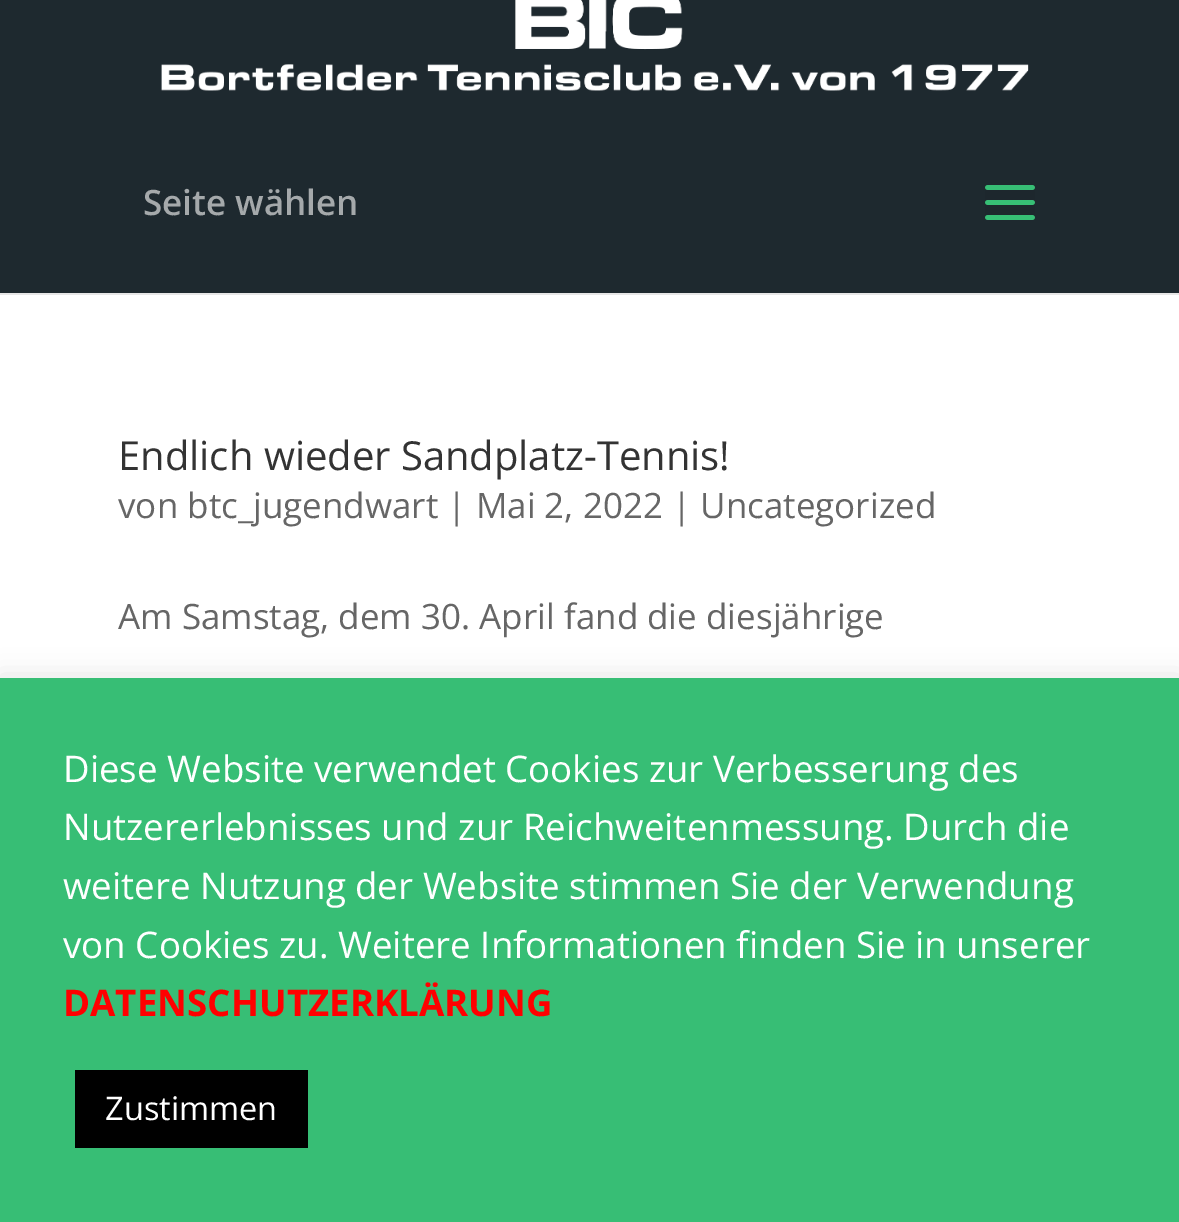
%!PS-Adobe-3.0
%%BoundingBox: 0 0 1179 1222
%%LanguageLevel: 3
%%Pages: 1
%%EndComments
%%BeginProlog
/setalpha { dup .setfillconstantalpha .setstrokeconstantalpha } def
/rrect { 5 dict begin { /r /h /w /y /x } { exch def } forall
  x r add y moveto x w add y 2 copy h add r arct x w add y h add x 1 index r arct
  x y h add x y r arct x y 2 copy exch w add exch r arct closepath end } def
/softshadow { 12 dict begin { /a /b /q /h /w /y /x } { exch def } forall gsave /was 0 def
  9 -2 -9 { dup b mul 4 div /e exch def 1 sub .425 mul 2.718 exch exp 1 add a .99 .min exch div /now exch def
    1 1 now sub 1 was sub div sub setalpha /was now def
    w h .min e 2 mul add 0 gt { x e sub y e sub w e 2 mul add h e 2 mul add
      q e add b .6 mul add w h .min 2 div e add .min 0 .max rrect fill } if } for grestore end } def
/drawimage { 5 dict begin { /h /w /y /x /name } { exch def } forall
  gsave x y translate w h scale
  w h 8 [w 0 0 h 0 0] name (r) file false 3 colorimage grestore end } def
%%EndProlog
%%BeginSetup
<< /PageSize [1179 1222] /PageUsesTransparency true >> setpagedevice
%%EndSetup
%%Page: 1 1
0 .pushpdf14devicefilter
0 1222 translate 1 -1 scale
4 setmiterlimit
1 setgray
0 0 1179 1222 rectfill
0.902 setgray
0 293 1179 2 rectfill
0.118 0.161 0.184 setrgbcolor
0 0 1179 293 rectfill
(images/1.raw) 161 0 868 91 drawimage
(images/2.raw) 985 185 50 35 drawimage
0.675 0.671 0.671 setrgbcolor
0 675 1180 545 0 12.5 0.3 softshadow
0.216 0.745 0.459 setrgbcolor
0 678 1179 544 rectfill
0 setgray
75 1070 233 78 rectfill
/OpenSans-SemiBold [35 0 0 -35 0 0] selectfont
0.647 0.663 0.671 setrgbcolor
143 215 moveto (Seite wählen) show
/OpenSans-Regular [40 0 0 -40 0 0] selectfont
0.2 setgray
118 470 moveto (Endlich wieder Sandplatz-Tennis!) show
/OpenSans-Regular [35 0 0 -35 0 0] selectfont
0.4 setgray
118 518 moveto (von btc_jugendwart | Mai 2, 2022 | Uncategorized) show
118 629 moveto (Am Samstag, dem 30. April fand die diesjährige) show
/OpenSans-Regular [36.7 0 0 -36.7 0 0] selectfont
1 setgray
63 782 moveto (Diese Website verwendet Cookies zur Verbesserung des) show
63 840 moveto (Nutzererlebnisses und zur Reichweitenmessung. Durch die) show
63 899 moveto (weitere Nutzung der Website stimmen Sie der Verwendung) show
63 958 moveto (von Cookies zu. Weitere Informationen finden Sie in unserer) show
/OpenSans-Bold [36.7 0 0 -36.7 0 0] selectfont
1 0 0 setrgbcolor
63 1016 moveto (DATENSCHUTZERKLÄRUNG) show
/OpenSans-Regular [32.5 0 0 -32.5 0 0] selectfont
1 setgray
105 1120 moveto (Zustimmen) show
.poppdf14devicefilter showpage
%%EOF
